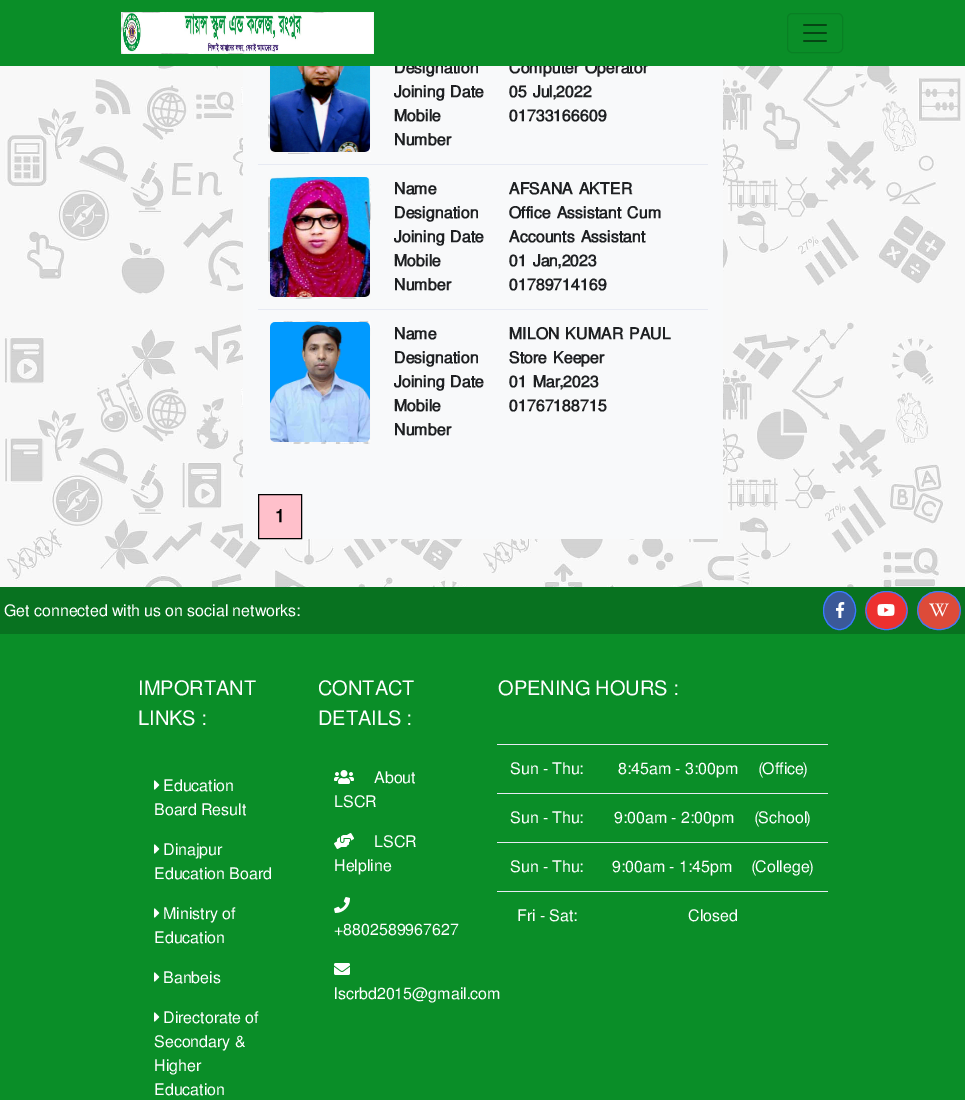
%!PS-Adobe-3.0
%%BoundingBox: 0 0 965 1100
%%LanguageLevel: 3
%%Pages: 1
%%EndComments
%%BeginProlog
/rrect { 5 dict begin { /r /h /w /y /x } { exch def } forall
  x r add y moveto x w add y 2 copy h add r arct x w add y h add x 1 index r arct
  x y h add x y r arct x y 2 copy exch w add exch r arct closepath end } def
/drawimage { 5 dict begin { /h /w /y /x /name } { exch def } forall
  gsave x y translate w h scale
  w h 8 [w 0 0 h 0 0] name (r) file false 3 colorimage grestore end } def
%%EndProlog
%%BeginSetup
<< /PageSize [965 1100] >> setpagedevice
%%EndSetup
%%Page: 1 1
0 1100 translate 1 -1 scale
4 setmiterlimit
1 setgray
0 0 965 1100 rectfill
(images/1.raw) 0 66 965 521 drawimage
0.973 0.976 0.98 setrgbcolor
243 66 480 473 rectfill
(images/4.raw) 268 66 103 88 drawimage
(images/5.raw) 268 177 103 122 drawimage
0.906 0.918 0.953 setrgbcolor
258 164 450 1 rectfill
(images/6.raw) 270 321 101 123 drawimage
258 309 450 1 rectfill
1 0.753 0.796 setrgbcolor
newpath 258.5 494.5 moveto 301.5 494.5 lineto 301.5 538.5 lineto 258.5 538.5 lineto closepath gsave fill grestore
0 setgray
stroke
0.039 0.557 0.157 setrgbcolor
0 634 965 466 rectfill
0.031 0.447 0.125 setrgbcolor
0 587 965 47 rectfill
0.231 0.349 0.596 setrgbcolor
newpath 839.5 591 moveto 848.5 591 856 599.5 856 610.5 curveto 856 621.5 848.5 630 839.5 630 curveto 830.5 630 823 621.5 823 610.5 curveto 823 599.5 830.5 591 839.5 591 curveto closepath fill
0.216 0.49 1 setrgbcolor
newpath 839.5 591.5 moveto 848.5 591.5 855.5 600 855.5 610.5 curveto 855.5 621 848.5 629.5 839.5 629.5 curveto 830.5 629.5 823.5 621 823.5 610.5 curveto 823.5 600 830.5 591.5 839.5 591.5 curveto closepath stroke
(images/7.raw) 836 602 9 16 drawimage
0.929 0.188 0.184 setrgbcolor
newpath 886.5 591 moveto 898.5 591 908 599.5 908 610.5 curveto 908 621.5 898.5 630 886.5 630 curveto 874.5 630 865 621.5 865 610.5 curveto 865 599.5 874.5 591 886.5 591 curveto closepath fill
0.216 0.49 1 setrgbcolor
newpath 886.5 591.5 moveto 914 591.5 914 629.5 886.5 629.5 curveto 859 629.5 859 591.5 886.5 591.5 curveto closepath stroke
(images/8.raw) 877 604 18 12 drawimage
0.867 0.294 0.224 setrgbcolor
newpath 939 591 moveto 951 591 961 599.5 961 610.5 curveto 961 621.5 951 630 939 630 curveto 927 630 917 621.5 917 610.5 curveto 917 599.5 927 591 939 591 curveto closepath fill
0.216 0.49 1 setrgbcolor
newpath 939 591.5 moveto 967.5 591.5 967.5 629.5 939 629.5 curveto 910.5 629.5 910.5 591.5 939 591.5 curveto closepath stroke
(images/9.raw) 929 603 20 14 drawimage
(images/10.raw) 154 780 6 10 drawimage
(images/10.raw) 154 844 6 10 drawimage
(images/10.raw) 154 908 6 10 drawimage
(images/10.raw) 154 972 6 10 drawimage
(images/10.raw) 154 1012 6 10 drawimage
(images/11.raw) 334 770 20 14 drawimage
(images/12.raw) 334 833 20 16 drawimage
(images/13.raw) 334 897 16 16 drawimage
(images/14.raw) 334 963 16 12 drawimage
0.906 0.918 0.953 setrgbcolor
497 744 331 1 rectfill
497 793 331 1 rectfill
497 842 331 1 rectfill
497 891 331 1 rectfill
/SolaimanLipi-Bold [16 0 0 -16 0 0] selectfont
0.118 0.125 0.133 setrgbcolor
394 73 moveto (Designation) show
394 97 moveto (Joining Date) show
394 121 moveto (Mobile) show
394 145 moveto (Number) show
509 73 moveto (Computer Operator) show
0.039 0.557 0.157 setrgbcolor
0 0 965 66 rectfill
0.035 0.502 0.141 setrgbcolor
787.5 13.5 55 39 4.5 rrect stroke
(images/3.raw) 803 24 24 18 drawimage
(images/2.raw) 121 12 253 42 drawimage
0.118 0.125 0.133 setrgbcolor
509 97 moveto (05 Jul,2022) show
509 121 moveto (01733166609) show
394 194 moveto (Name) show
394 218 moveto (Designation) show
394 242 moveto (Joining Date) show
394 266 moveto (Mobile) show
394 290 moveto (Number) show
509 194 moveto (AFSANA AKTER) show
509 218 moveto (Office Assistant Cum) show
509 242 moveto (Accounts Assistant) show
509 266 moveto (01 Jan,2023) show
509 290 moveto (01789714169) show
394 339 moveto (Name) show
394 363 moveto (Designation) show
394 387 moveto (Joining Date) show
394 411 moveto (Mobile) show
394 435 moveto (Number) show
509 339 moveto (MILON KUMAR PAUL) show
509 363 moveto (Store Keeper) show
509 387 moveto (01 Mar,2023) show
509 411 moveto (01767188715) show
/SolaimanLipi-Bold [18 0 0 -18 0 0] selectfont
0 setgray
275 522 moveto (1) show
/SolaimanLipi-Regular [16 0 0 -16 0 0] selectfont
1 setgray
4 616 moveto (Get connected with us on social networks:) show
/SolaimanLipi-Regular [20 0 0 -20 0 0] selectfont
138 695 moveto (IMPORTANT) show
138 725 moveto (LINKS :) show
/SolaimanLipi-Regular [16 0 0 -16 0 0] selectfont
163 791 moveto (Education) show
154 815 moveto (Board Result) show
163 855 moveto (Dinajpur) show
154 879 moveto (Education Board) show
163 919 moveto (Ministry of) show
154 943 moveto (Education) show
163 983 moveto (Banbeis) show
163 1023 moveto (Directorate of) show
154 1047 moveto (Secondary &) show
154 1071 moveto (Higher) show
154 1095 moveto (Education) show
/SolaimanLipi-Regular [20 0 0 -20 0 0] selectfont
318 695 moveto (CONTACT) show
318 725 moveto (DETAILS :) show
/SolaimanLipi-Regular [16 0 0 -16 0 0] selectfont
374 783 moveto (About) show
334 807 moveto (LSCR) show
374 847 moveto (LSCR) show
334 871 moveto (Helpline) show
334 935 moveto (+8802589967627) show
334 999 moveto (lscrbd2015@gmail.com) show
/SolaimanLipi-Regular [20 0 0 -20 0 0] selectfont
498 695 moveto (OPENING HOURS :) show
/SolaimanLipi-Regular [16 0 0 -16 0 0] selectfont
510 774 moveto (Sun - Thu:) show
618 774 moveto (8:45am - 3:00pm) show
759 774 moveto (\(Office\)) show
510 823 moveto (Sun - Thu:) show
614 823 moveto (9:00am - 2:00pm) show
755 823 moveto (\(School\)) show
510 872 moveto (Sun - Thu:) show
612 872 moveto (9:00am - 1:45pm) show
752 872 moveto (\(College\)) show
517 921 moveto (Fri - Sat:) show
688 921 moveto (Closed) show
showpage
%%EOF
